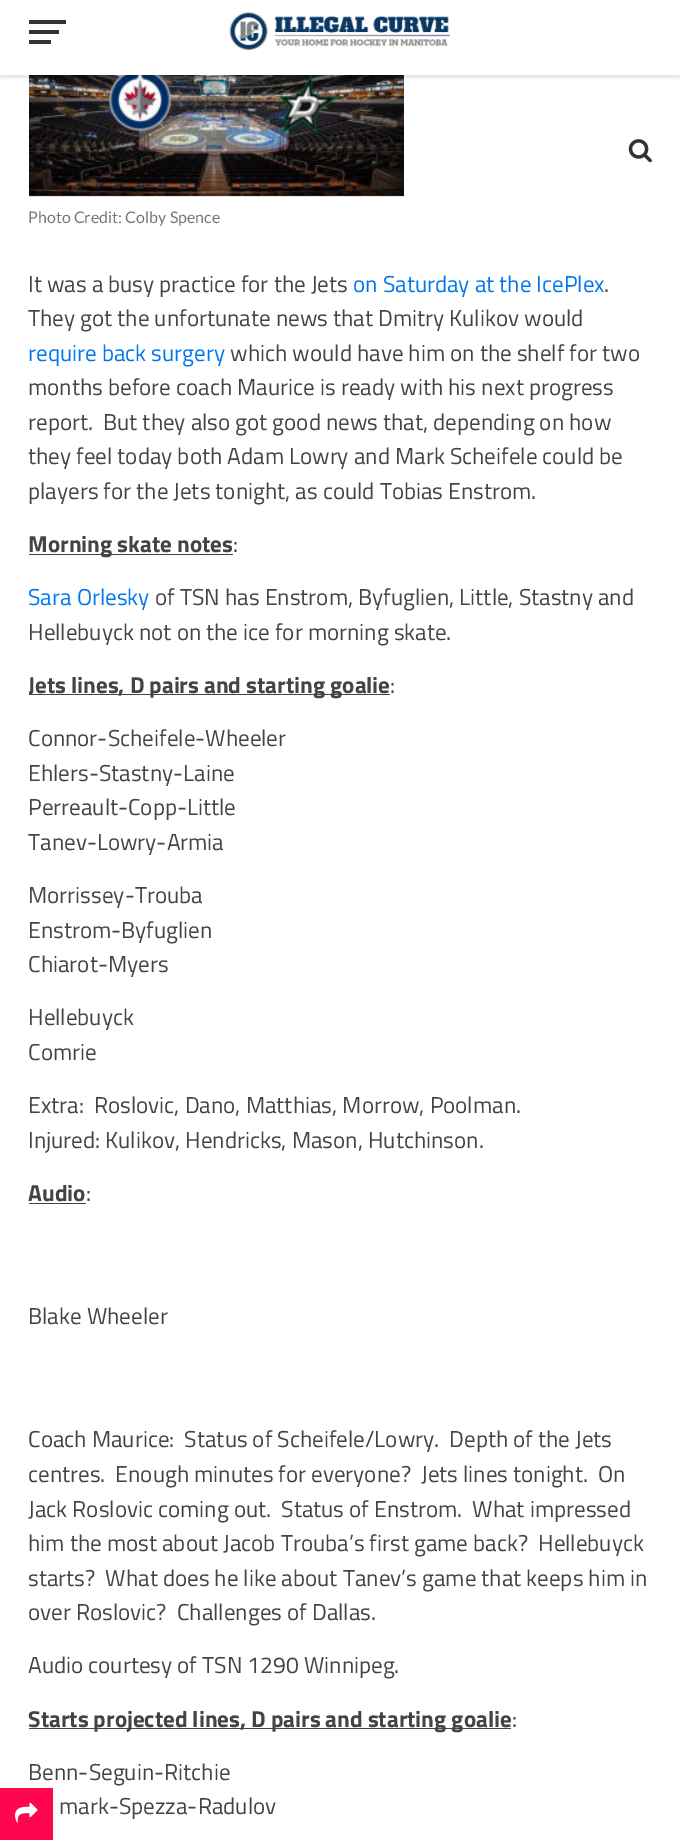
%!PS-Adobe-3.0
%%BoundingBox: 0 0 680 1840
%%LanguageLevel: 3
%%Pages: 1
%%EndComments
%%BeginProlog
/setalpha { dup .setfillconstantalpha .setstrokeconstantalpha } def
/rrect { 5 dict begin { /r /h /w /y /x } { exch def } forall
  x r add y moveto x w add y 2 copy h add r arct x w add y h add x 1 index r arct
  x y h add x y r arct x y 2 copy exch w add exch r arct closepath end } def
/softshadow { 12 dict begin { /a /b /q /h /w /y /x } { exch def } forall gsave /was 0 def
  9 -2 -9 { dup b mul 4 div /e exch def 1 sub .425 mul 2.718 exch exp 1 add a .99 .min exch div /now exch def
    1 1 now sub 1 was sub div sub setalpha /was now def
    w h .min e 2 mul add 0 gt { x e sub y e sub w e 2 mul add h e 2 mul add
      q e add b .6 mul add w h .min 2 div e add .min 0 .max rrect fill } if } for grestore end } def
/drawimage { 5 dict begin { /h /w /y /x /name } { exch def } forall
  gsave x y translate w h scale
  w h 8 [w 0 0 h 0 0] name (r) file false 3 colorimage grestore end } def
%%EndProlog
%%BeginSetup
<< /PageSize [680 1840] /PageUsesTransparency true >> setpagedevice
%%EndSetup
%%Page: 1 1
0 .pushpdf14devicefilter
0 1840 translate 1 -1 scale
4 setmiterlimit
1 setgray
0 0 680 1840 rectfill
(images/4.raw) 29 75 375 122 drawimage
0 setgray
0 3 680 75 0 1 0.1 softshadow
1 setgray
0 2 680 73 rectfill
0.2 setgray
29 20 37 4 rectfill
29 30 30 4 rectfill
29 40 22 4 rectfill
(images/1.raw) 229 12 221 38 drawimage
(images/2.raw) 628 139 24 24 drawimage
0.996 0.027 0.306 setrgbcolor
0 1788 53 52 rectfill
(images/3.raw) 15 1802 23 21 drawimage
0.267 setgray
29 554 204 1 rectfill
29 694 361 1 rectfill
29 1203 57 1 rectfill
29 1728 482 1 rectfill
/Lato-Regular [16 0 0 -16 0 0] selectfont
0.467 setgray
28 223 moveto (Photo Credit: Colby Spence) show
/TitilliumWeb-Regular [23 0 0 -23 0 0] selectfont
0.267 setgray
28 292 moveto (It was a busy practice for the Jets) show
0 0.467 0.933 setrgbcolor
353 292 moveto (on Saturday at the IcePlex) show
0.267 setgray
604 292 moveto (.) show
28 326 moveto (They got the unfortunate news that Dmitry Kulikov would) show
0 0.467 0.933 setrgbcolor
28 361 moveto (require back surgery) show
0.267 setgray
230 361 moveto (which would have him on the shelf for two) show
28 395 moveto (months before coach Maurice is ready with his next progress) show
28 430 moveto (report.  But they also got good news that, depending on how) show
28 464 moveto (they feel today both Adam Lowry and Mark Scheifele could be) show
28 499 moveto (players for the Jets tonight, as could Tobias Enstrom.) show
/TitilliumWeb-Bold [23 0 0 -23 0 0] selectfont
28 552 moveto (Morning skate notes) show
/TitilliumWeb-Regular [23 0 0 -23 0 0] selectfont
233 552 moveto (:) show
0 0.467 0.933 setrgbcolor
28 605 moveto (Sara Orlesky) show
0.267 setgray
155 605 moveto (of TSN has Enstrom, Byfuglien, Little, Stastny and) show
28 640 moveto (Hellebuyck not on the ice for morning skate.) show
gsave
29 11 622 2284 rectclip
/TitilliumWeb-Bold [23 0 0 -23 0 0] selectfont
28 693 moveto (Jets) show
grestore
/TitilliumWeb-Bold [23 0 0 -23 0 0] selectfont
71 693 moveto (lines, D pairs and starting goalie) show
/TitilliumWeb-Regular [23 0 0 -23 0 0] selectfont
390 693 moveto (:) show
28 746 moveto (Connor-Scheifele-Wheeler) show
28 781 moveto (Ehlers-Stastny-Laine) show
28 815 moveto (Perreault-Copp-Little) show
28 850 moveto (Tanev-Lowry-Armia) show
28 903 moveto (Morrissey-Trouba) show
28 938 moveto (Enstrom-Byfuglien) show
28 972 moveto (Chiarot-Myers) show
28 1025 moveto (Hellebuyck) show
28 1060 moveto (Comrie) show
28 1113 moveto (Extra:  Roslovic, Dano, Matthias, Morrow, Poolman.) show
28 1148 moveto (Injured: Kulikov, Hendricks, Mason, Hutchinson.) show
/TitilliumWeb-Bold [23 0 0 -23 0 0] selectfont
28 1201 moveto (Audio) show
/TitilliumWeb-Regular [23 0 0 -23 0 0] selectfont
86 1201 moveto (:) show
28 1324 moveto (Blake Wheeler) show
28 1447 moveto (Coach Maurice:  Status of Scheifele/Lowry.  Depth of the Jets) show
28 1482 moveto (centres.  Enough minutes for everyone?  Jets lines tonight.  On) show
28 1517 moveto (Jack Roslovic coming out.  Status of Enstrom.  What impressed) show
28 1551 moveto (him the most about Jacob Trouba’s first game back?  Hellebuyck) show
28 1586 moveto (starts?  What does he like about Tanev’s game that keeps him in) show
28 1620 moveto (over Roslovic?  Challenges of Dallas.) show
28 1673 moveto (Audio courtesy of TSN 1290 Winnipeg.) show
/TitilliumWeb-Bold [23 0 0 -23 0 0] selectfont
28 1727 moveto (Starts projected lines, D pairs and starting goalie) show
/TitilliumWeb-Regular [23 0 0 -23 0 0] selectfont
512 1727 moveto (:) show
28 1780 moveto (Benn-Seguin-Ritchie) show
59 1814 moveto (mark-Spezza-Radulov) show
.poppdf14devicefilter showpage
%%EOF
